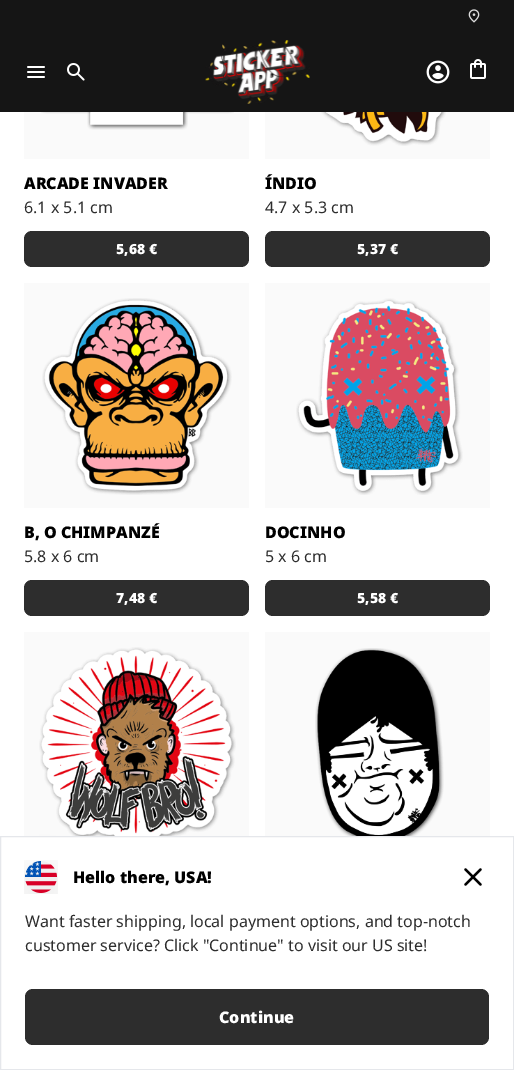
%!PS-Adobe-3.0
%%BoundingBox: 0 0 514 1070
%%LanguageLevel: 3
%%Pages: 1
%%EndComments
%%BeginProlog
/rrect { 5 dict begin { /r /h /w /y /x } { exch def } forall
  x r add y moveto x w add y 2 copy h add r arct x w add y h add x 1 index r arct
  x y h add x y r arct x y 2 copy exch w add exch r arct closepath end } def
/drawimage { 5 dict begin { /h /w /y /x /name } { exch def } forall
  gsave x y translate w h scale
  w h 8 [w 0 0 h 0 0] name (r) file false 3 colorimage grestore end } def
%%EndProlog
%%BeginSetup
<< /PageSize [514 1070] >> setpagedevice
%%EndSetup
%%Page: 1 1
0 1070 translate 1 -1 scale
4 setmiterlimit
1 setgray
0 0 514 1070 rectfill
0.082 setgray
0 0 514 112 rectfill
(images/1.raw) 468 9 12 14 drawimage
(images/2.raw) 27 66 18 12 drawimage
(images/3.raw) 67 63 18 18 drawimage
(images/4.raw) 205 40 105 64 drawimage
(images/5.raw) 426 60 24 24 drawimage
(images/6.raw) 470 59 16 20 drawimage
0.98 setgray
24 112 225 47 rectfill
(images/7.raw) 41 112 193 18 drawimage
0.176 setgray
24 231 225 36 8 rrect fill
0.98 setgray
265 112 225 47 rectfill
(images/8.raw) 321 112 125 34 drawimage
0.176 setgray
265 231 225 36 8 rrect fill
0.98 setgray
24 283 225 225 rectfill
(images/9.raw) 42 298 190 197 drawimage
0.176 setgray
24 580 225 36 8 rrect fill
0.98 setgray
265 283 225 225 rectfill
(images/10.raw) 296 298 167 197 drawimage
0.176 setgray
265 580 225 36 8 rrect fill
0.98 setgray
24 632 225 204 rectfill
(images/11.raw) 39 647 197 189 drawimage
265 632 225 204 rectfill
(images/12.raw) 315 648 129 188 drawimage
0.898 0.906 0.922 setrgbcolor
0.5 836.5 513 233 rectstroke
(images/13.raw) 24 860 34 34 drawimage
(images/14.raw) 464 868 18 18 drawimage
0.176 setgray
25 989 464 56 8 rrect fill
/NotoSans-Black [16 0 0 -16 0 0] selectfont
0 setgray
24 189 moveto (ARCADE INVADER) show
/NotoSans-Regular [16 0 0 -16 0 0] selectfont
0.176 setgray
24 213 moveto (6.1 x 5.1 cm) show
/NotoSans-Black [14 0 0 -14 0 0] selectfont
1 setgray
116 254 moveto (5,68 €) show
/NotoSans-Black [16 0 0 -16 0 0] selectfont
0 setgray
265 189 moveto (ÍNDIO) show
/NotoSans-Regular [16 0 0 -16 0 0] selectfont
0.176 setgray
265 213 moveto (4.7 x 5.3 cm) show
/NotoSans-Black [14 0 0 -14 0 0] selectfont
1 setgray
357 254 moveto (5,37 €) show
/NotoSans-Black [16 0 0 -16 0 0] selectfont
0 setgray
24 538 moveto (B, O CHIMPANZÉ) show
/NotoSans-Regular [16 0 0 -16 0 0] selectfont
0.176 setgray
24 562 moveto (5.8 x 6 cm) show
/NotoSans-Black [14 0 0 -14 0 0] selectfont
1 setgray
116 603 moveto (7,48 €) show
/NotoSans-Black [16 0 0 -16 0 0] selectfont
0 setgray
265 538 moveto (DOCINHO) show
/NotoSans-Regular [16 0 0 -16 0 0] selectfont
0.176 setgray
265 562 moveto (5 x 6 cm) show
/NotoSans-Black [14 0 0 -14 0 0] selectfont
1 setgray
357 603 moveto (5,58 €) show
/NotoSans-Black [16 0 0 -16 0 0] selectfont
0 setgray
73 883 moveto (Hello there, USA!) show
/NotoSans-Regular [16 0 0 -16 0 0] selectfont
0.176 setgray
25 927 moveto (Want faster shipping, local payment options, and top-notch) show
25 951 moveto (customer service? Click "Continue" to visit our US site!) show
/NotoSans-Black [16 0 0 -16 0 0] selectfont
1 setgray
219 1023 moveto (Continue) show
showpage
%%EOF
